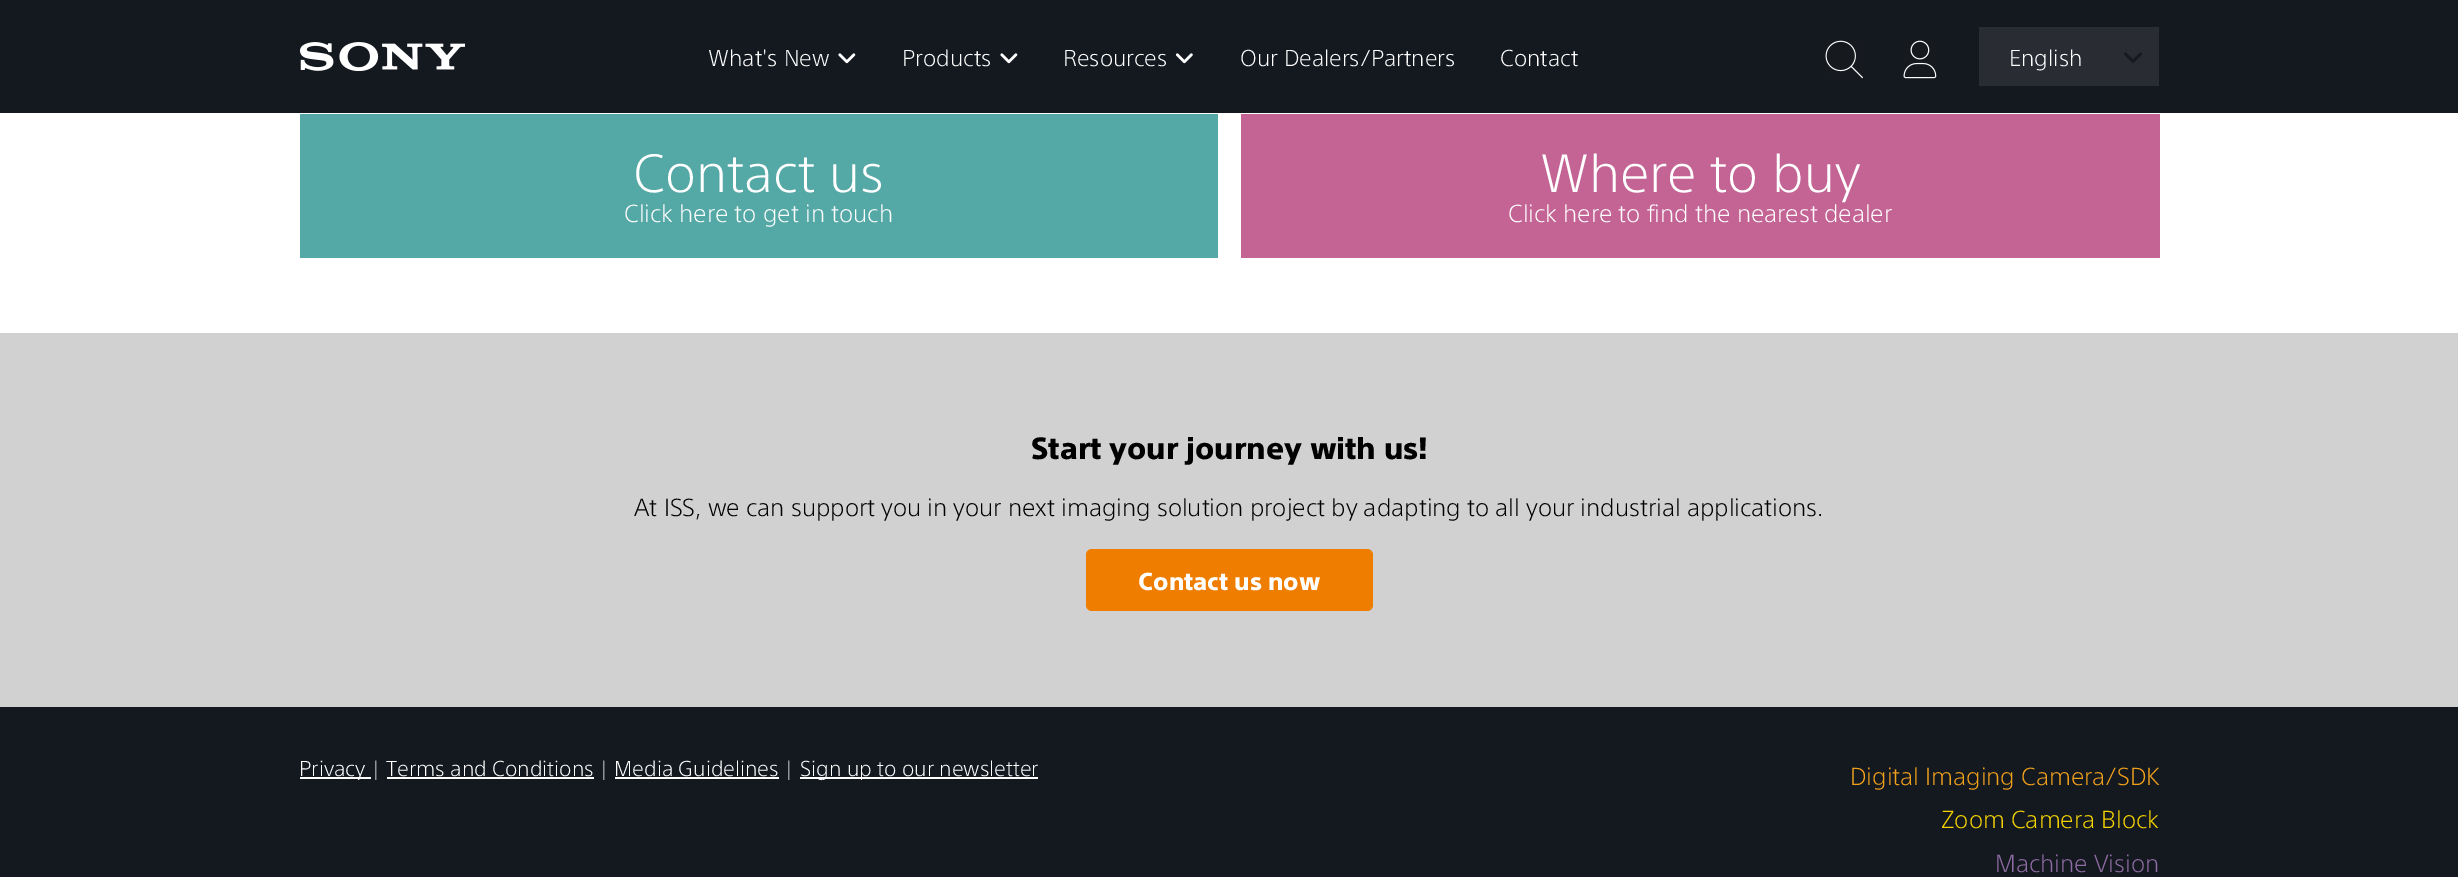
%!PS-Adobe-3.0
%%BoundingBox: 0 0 2458 877
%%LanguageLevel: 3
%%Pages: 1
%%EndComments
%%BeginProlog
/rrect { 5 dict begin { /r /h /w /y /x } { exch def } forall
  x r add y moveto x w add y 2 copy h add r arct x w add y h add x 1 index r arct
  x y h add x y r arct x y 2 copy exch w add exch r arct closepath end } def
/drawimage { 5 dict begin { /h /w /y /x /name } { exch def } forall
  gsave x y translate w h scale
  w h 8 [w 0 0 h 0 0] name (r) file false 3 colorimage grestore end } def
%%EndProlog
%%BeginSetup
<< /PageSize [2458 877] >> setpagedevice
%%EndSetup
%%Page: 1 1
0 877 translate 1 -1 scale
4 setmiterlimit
1 setgray
0 0 2458 877 rectfill
0.078 0.098 0.125 setrgbcolor
0 0 2458 113 rectfill
(images/1.raw) 300 42 165 29 drawimage
(images/2.raw) 838 53 18 11 drawimage
(images/2.raw) 1000 53 18 11 drawimage
(images/3.raw) 1175 53 18 11 drawimage
(images/4.raw) 1825 40 38 39 drawimage
(images/5.raw) 1903 40 34 39 drawimage
0.161 0.176 0.2 setrgbcolor
1979 27 180 59 rectfill
(images/6.raw) 2124 52 18 11 drawimage
0.329 0.659 0.651 setrgbcolor
300 114 918 144 rectfill
0.769 0.392 0.584 setrgbcolor
1241 114 919 144 rectfill
0.078 0.098 0.125 setrgbcolor
0 707 2458 170 rectfill
0.82 setgray
0 333 2458 374 rectfill
0.937 0.49 0 setrgbcolor
1086 549 287 62 6 rrect fill
1 setgray
300 777 71 2 rectfill
800 777 238 2 rectfill
387 777 207 2 rectfill
615 777 164 2 rectfill
/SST-Light [22.5 0 0 -22.5 0 0] selectfont
708 66 moveto (What's New) show
902 66 moveto (Products) show
1063 66 moveto (Resources) show
1240 66 moveto (Our Dealers/Partners) show
1500 66 moveto (Contact) show
2009 66 moveto (English) show
/SST-Light [52.5 0 0 -52.5 0 0] selectfont
633 192 moveto (Contact us) show
/SST-Light [24 0 0 -24 0 0] selectfont
624 222 moveto (Click here to get in touch) show
/SST-Light [52.5 0 0 -52.5 0 0] selectfont
1540 192 moveto (Where to buy) show
/SST-Light [24 0 0 -24 0 0] selectfont
1508 222 moveto (Click here to find the nearest dealer) show
/SST-Black [30 0 0 -30 0 0] selectfont
0 setgray
1031 459 moveto (Start your journey with us!) show
/SST-Light [24 0 0 -24 0 0] selectfont
634 516 moveto (At ISS, we can support you in your next imaging solution project by adapting to all your industrial applications.) show
/SST-Black [24 0 0 -24 0 0] selectfont
1 setgray
1138 590 moveto (Contact us now) show
/SST-Light [21 0 0 -21 0 0] selectfont
299 776 moveto (Privacy | Terms and Conditions | Media Guidelines |) show
800 776 moveto (Sign up to our newsletter) show
/SST-Light [24 0 0 -24 0 0] selectfont
0.937 0.631 0.106 setrgbcolor
1850 785 moveto (Digital Imaging Camera/SDK) show
0.961 0.831 0 setrgbcolor
1941 828 moveto (Zoom Camera Block) show
0.561 0.42 0.639 setrgbcolor
1995 872 moveto (Machine Vision) show
showpage
%%EOF
